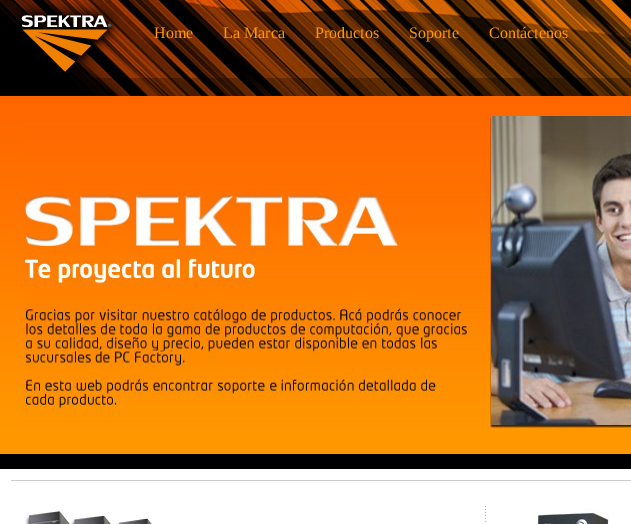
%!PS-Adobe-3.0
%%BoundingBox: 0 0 631 524
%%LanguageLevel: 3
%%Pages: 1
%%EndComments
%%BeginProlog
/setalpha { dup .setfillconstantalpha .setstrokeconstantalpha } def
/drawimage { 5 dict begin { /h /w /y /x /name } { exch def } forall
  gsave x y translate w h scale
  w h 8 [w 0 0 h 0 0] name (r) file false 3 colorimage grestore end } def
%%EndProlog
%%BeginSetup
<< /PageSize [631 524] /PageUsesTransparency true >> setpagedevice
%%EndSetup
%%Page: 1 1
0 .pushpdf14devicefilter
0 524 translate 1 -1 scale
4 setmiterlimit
0 setgray
0 0 631 524 rectfill
(images/1.raw) 0 0 631 96 drawimage
(images/2.raw) 15 2 106 70 drawimage
0.25 setalpha
90 78 541 18 rectfill
1 setalpha
(images/3.raw) 0 96 631 358 drawimage
(images/4.raw) 24 116 607 314 drawimage
1 setgray
0 469 631 55 rectfill
0.8 setgray
11 480 620 1 rectfill
(images/5.raw) 25 511 127 13 drawimage
(images/6.raw) 485 506 1 16 drawimage
(images/7.raw) 537 508 72 16 drawimage
/LiberationSerif-Regular [16 0 0 -16 0 0] selectfont
1 0.6 0 setrgbcolor
154 38 moveto (Home) show
223 38 moveto (La Marca) show
315 38 moveto (Productos) show
409 38 moveto (Soporte) show
489 38 moveto (Contáctenos) show
.poppdf14devicefilter showpage
%%EOF
